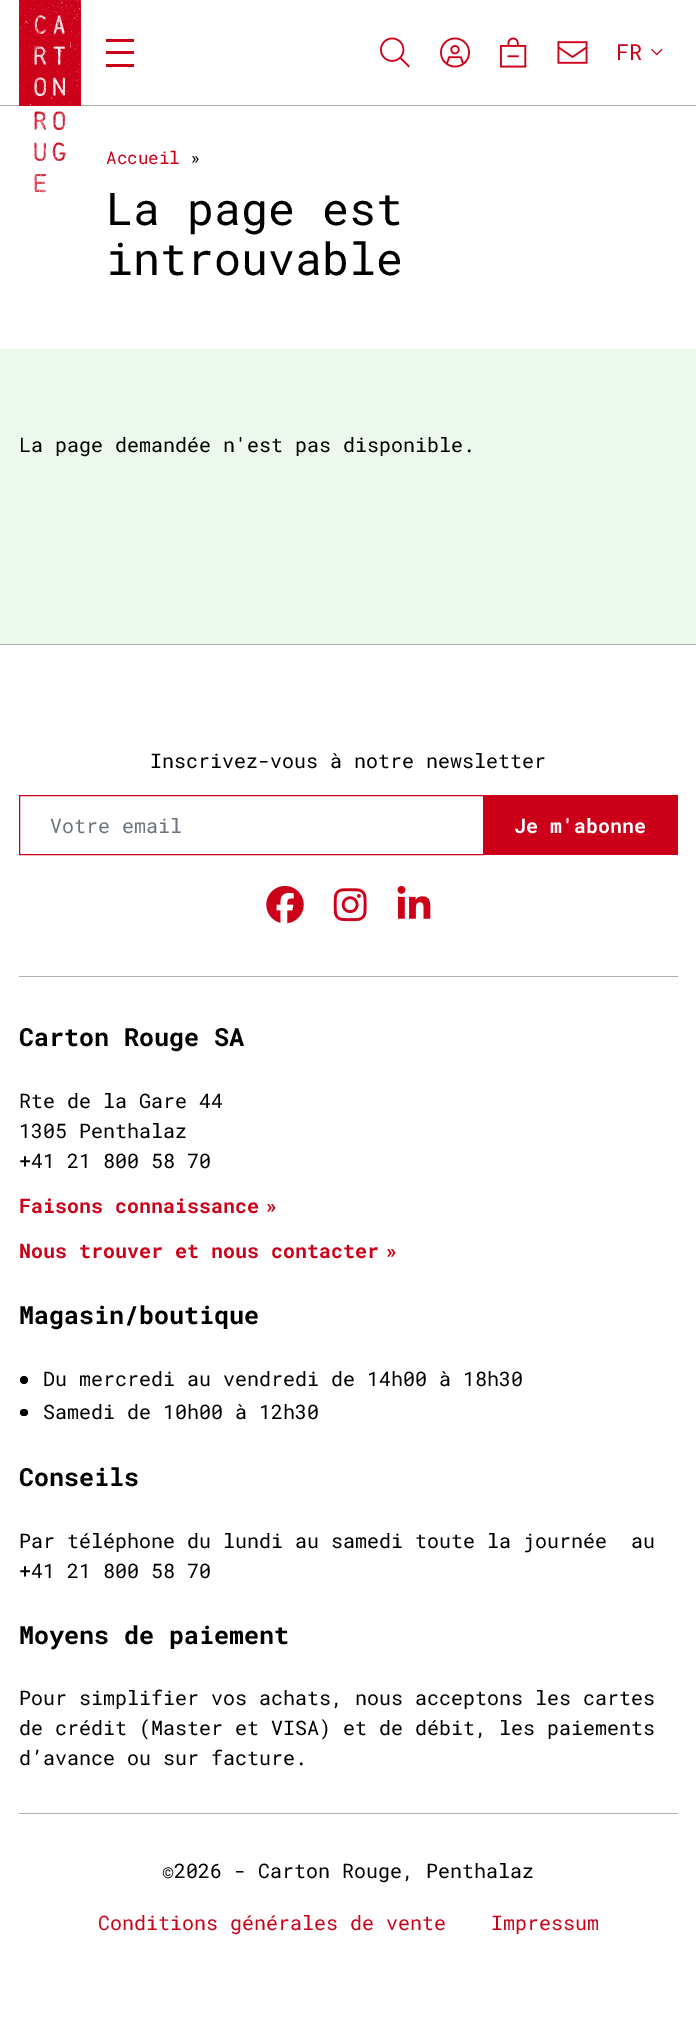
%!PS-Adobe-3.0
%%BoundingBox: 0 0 696 2018
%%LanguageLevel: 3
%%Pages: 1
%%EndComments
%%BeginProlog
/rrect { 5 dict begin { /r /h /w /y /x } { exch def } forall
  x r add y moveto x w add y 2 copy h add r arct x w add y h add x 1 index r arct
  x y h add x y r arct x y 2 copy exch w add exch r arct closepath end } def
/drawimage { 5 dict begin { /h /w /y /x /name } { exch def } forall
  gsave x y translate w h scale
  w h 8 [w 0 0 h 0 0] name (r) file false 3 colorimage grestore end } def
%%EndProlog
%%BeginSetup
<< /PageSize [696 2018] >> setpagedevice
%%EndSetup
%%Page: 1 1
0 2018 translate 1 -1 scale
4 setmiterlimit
0.925 0.973 0.925 setrgbcolor
0 0 696 2018 rectfill
1 setgray
0 0 696 105 rectfill
0.659 0.706 0.659 setrgbcolor
0 105 696 1 rectfill
(images/1.raw) 19 0 62 106 drawimage
1 setgray
0 106 696 243 rectfill
(images/2.raw) 34 111 32 82 drawimage
0.804 0 0.102 setrgbcolor
106 39 28 3 rectfill
106 51 28 3 rectfill
106 64 28 3 rectfill
(images/3.raw) 380 37 30 31 drawimage
(images/4.raw) 440 37 30 31 drawimage
(images/5.raw) 500 37 27 31 drawimage
(images/6.raw) 557 41 31 23 drawimage
(images/7.raw) 651 48 12 8 drawimage
1 setgray
0 645 696 1373 rectfill
0.659 0.706 0.659 setrgbcolor
0 644 696 1 rectfill
0.804 0 0.102 setrgbcolor
19.5 795.5 464 59 rectstroke
484 795 194 60 rectfill
(images/8.raw) 266 885 38 39 drawimage
(images/9.raw) 333 888 34 34 drawimage
(images/10.raw) 397 885 34 34 drawimage
0.659 0.706 0.659 setrgbcolor
19 976 659 1 rectfill
0 setgray
newpath 24 1380 4 0 360 arc closepath fill
20 1409 8 7 3.5 rrect fill
0.659 0.706 0.659 setrgbcolor
19 1813 659 1 rectfill
/RobotoMono-Regular [22 0 0 -22 0 0] selectfont
0.804 0 0.102 setrgbcolor
616 60 moveto (FR) show
/RobotoMono-Regular [17.5 0 0 -17.5 0 0] selectfont
106 164 moveto (Accueil) show
0 setgray
190 164 moveto (») show
/RobotoMono-Regular [45 0 0 -45 0 0] selectfont
106 225 moveto (La page est) show
106 275 moveto (introuvable) show
/RobotoMono-Regular [20 0 0 -20 0 0] selectfont
19 452 moveto (La page demandée n'est pas disponible.) show
150 768 moveto (Inscrivez-vous à notre newsletter) show
0.424 0.459 0.49 setrgbcolor
50 833 moveto (Votre email) show
/RobotoMono-Bold [20 0 0 -20 0 0] selectfont
1 setgray
514 833 moveto (Je m'abonne) show
/RobotoMono-Bold [25 0 0 -25 0 0] selectfont
0 setgray
19 1046 moveto (Carton Rouge SA) show
/RobotoMono-Regular [20 0 0 -20 0 0] selectfont
19 1108 moveto (Rte de la Gare 44) show
19 1138 moveto (1305 Penthalaz) show
19 1168 moveto (+41 21 800 58 70) show
/RobotoMono-Bold [20 0 0 -20 0 0] selectfont
0.804 0 0.102 setrgbcolor
19 1213 moveto (Faisons connaissance) show
265 1213 moveto (») show
19 1258 moveto (Nous trouver et nous contacter) show
385 1258 moveto (») show
/RobotoMono-Bold [25 0 0 -25 0 0] selectfont
0 setgray
19 1324 moveto (Magasin/boutique) show
/RobotoMono-Regular [20 0 0 -20 0 0] selectfont
43 1386 moveto (Du mercredi au vendredi de 14h00 à 18h30) show
43 1419 moveto (Samedi de 10h00 à 12h30) show
/RobotoMono-Bold [25 0 0 -25 0 0] selectfont
19 1486 moveto (Conseils) show
/RobotoMono-Regular [20 0 0 -20 0 0] selectfont
19 1548 moveto (Par téléphone du lundi au samedi toute la journée  au) show
19 1578 moveto (+41 21 800 58 70) show
/RobotoMono-Bold [25 0 0 -25 0 0] selectfont
19 1644 moveto (Moyens de paiement) show
/RobotoMono-Regular [20 0 0 -20 0 0] selectfont
19 1705 moveto (Pour simplifier vos achats, nous acceptons les cartes) show
19 1735 moveto (de crédit \(Master et VISA\) et de débit, les paiements) show
19 1765 moveto (d’avance ou sur facture.) show
162 1878 moveto (©2026 - Carton Rouge, Penthalaz) show
0.804 0 0.102 setrgbcolor
98 1930 moveto (Conditions générales de vente) show
491 1930 moveto (Impressum) show
showpage
%%EOF
